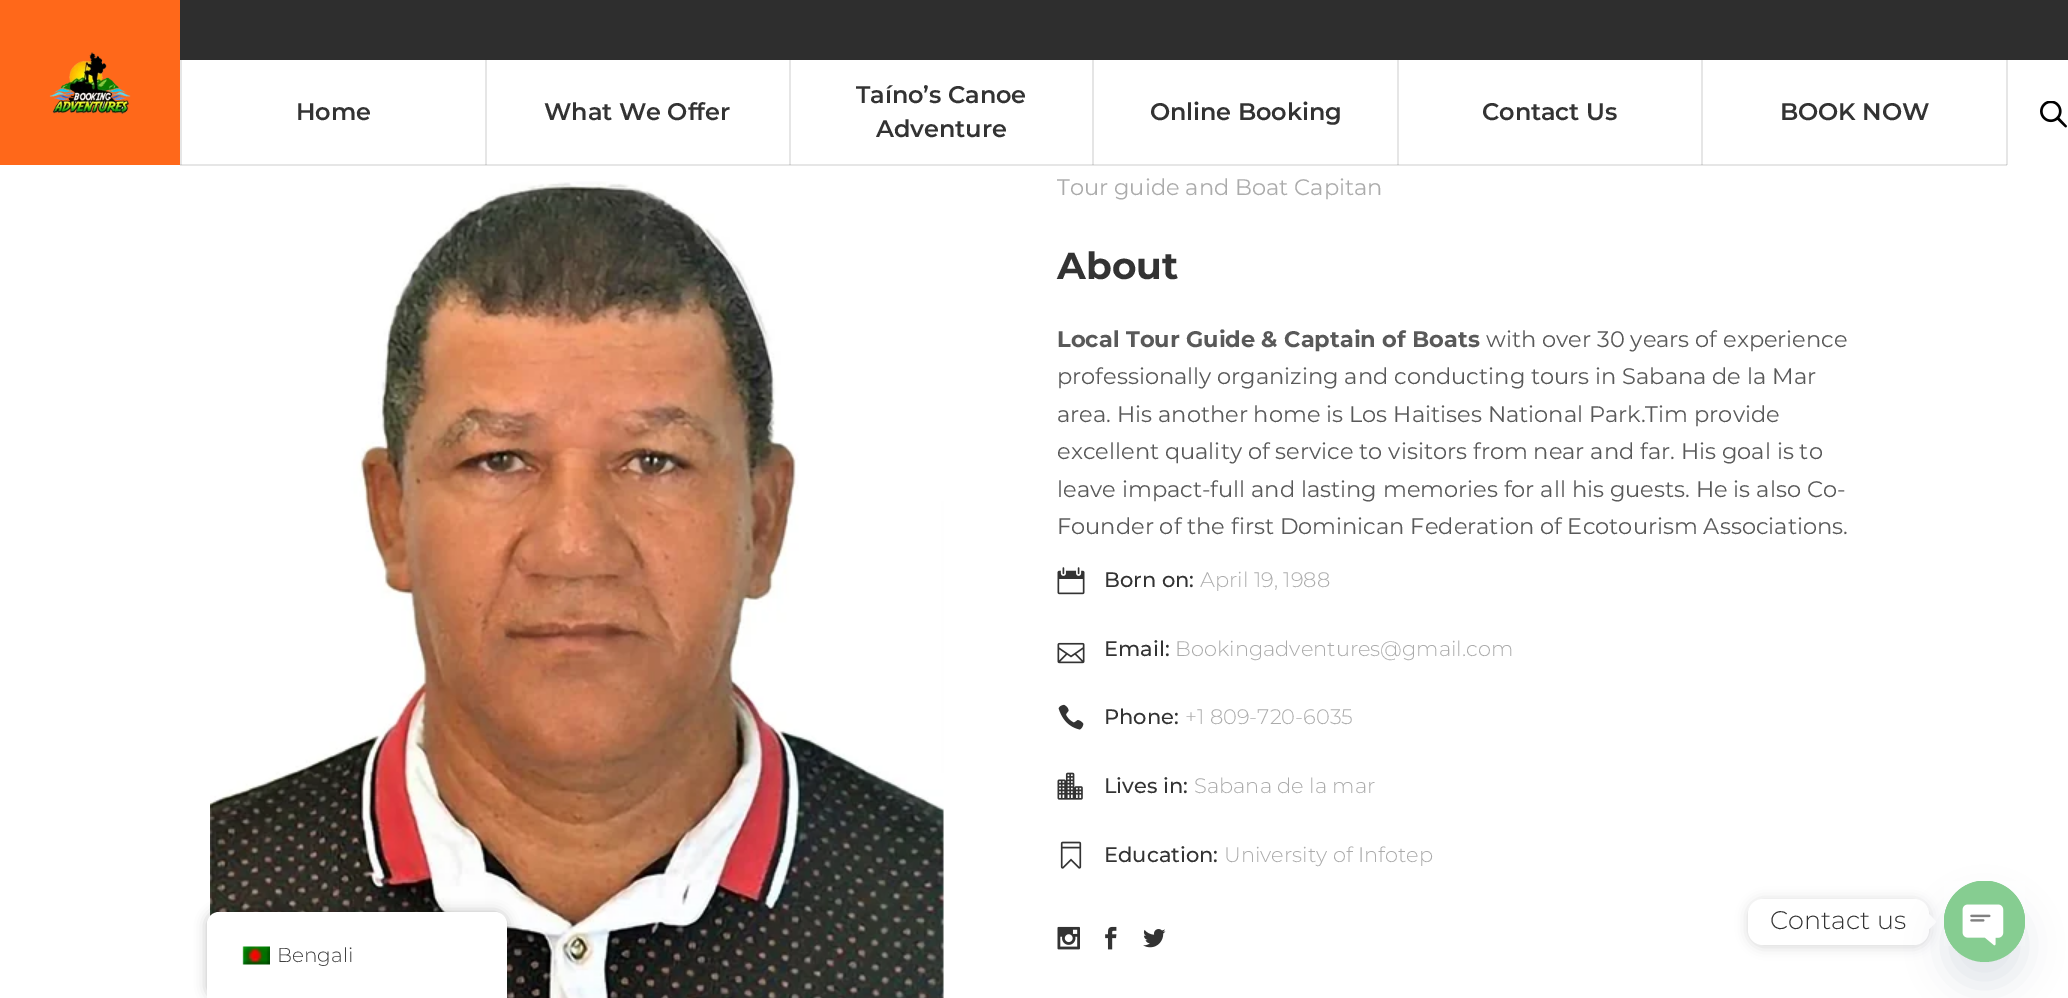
%!PS-Adobe-3.0
%%BoundingBox: 0 0 2068 998
%%LanguageLevel: 3
%%Pages: 1
%%EndComments
%%BeginProlog
/setalpha { dup .setfillconstantalpha .setstrokeconstantalpha } def
/rrect { 5 dict begin { /r /h /w /y /x } { exch def } forall
  x r add y moveto x w add y 2 copy h add r arct x w add y h add x 1 index r arct
  x y h add x y r arct x y 2 copy exch w add exch r arct closepath end } def
/softshadow { 12 dict begin { /a /b /q /h /w /y /x } { exch def } forall gsave /was 0 def
  9 -2 -9 { dup b mul 4 div /e exch def 1 sub .425 mul 2.718 exch exp 1 add a .99 .min exch div /now exch def
    1 1 now sub 1 was sub div sub setalpha /was now def
    w h .min e 2 mul add 0 gt { x e sub y e sub w e 2 mul add h e 2 mul add
      q e add b .6 mul add w h .min 2 div e add .min 0 .max rrect fill } if } for grestore end } def
/drawimage { 5 dict begin { /h /w /y /x /name } { exch def } forall
  gsave x y translate w h scale
  w h 8 [w 0 0 h 0 0] name (r) file false 3 colorimage grestore end } def
%%EndProlog
%%BeginSetup
<< /PageSize [2068 998] /PageUsesTransparency true >> setpagedevice
%%EndSetup
%%Page: 1 1
0 .pushpdf14devicefilter
0 998 translate 1 -1 scale
4 setmiterlimit
1 setgray
0 0 2068 998 rectfill
0.902 setgray
180 60 2 105 rectfill
485 60 2 105 rectfill
789 60 2 105 rectfill
1397 60 2 105 rectfill
1701 60 2 105 rectfill
2006 60 2 105 rectfill
1 0.408 0.102 setrgbcolor
0 0 180 165 rectfill
(images/1.raw) 49 52 82 62 drawimage
0.18 setgray
180 0 1888 60 rectfill
0.902 setgray
180 164 1827 2 rectfill
0.812 setgray
180 164 2 1 rectfill
485 164 2 1 rectfill
789 164 2 1 rectfill
1397 164 2 1 rectfill
1701 164 2 1 rectfill
2006 164 1 1 rectfill
0.1 setalpha
0 setgray
1092 60 2 105 rectfill
1 setalpha
(images/2.raw) 2040 101 27 27 drawimage
(images/3.raw) 210 181 734 817 drawimage
(images/4.raw) 1057 567 28 28 drawimage
(images/5.raw) 1057 642 28 22 drawimage
(images/6.raw) 1058 704 26 26 drawimage
(images/7.raw) 1057 772 26 28 drawimage
(images/8.raw) 1060 841 22 28 drawimage
(images/9.raw) 1057 926 23 24 drawimage
(images/10.raw) 1105 926 12 24 drawimage
(images/11.raw) 1143 929 23 19 drawimage
1748 900 181 47 15 6 0.15 softshadow
1 setgray
1748 899 181 46 15 rrect fill
newpath 1929 929 moveto 1929 914 lineto 1936.5 922 lineto closepath fill
0.286 0.408 0.494 setrgbcolor
1944 905 81 81 40.5 18 0.16 softshadow
0.525 0.804 0.569 setrgbcolor
newpath 1984.5 921.5 40.5 0 360 arc closepath fill
(images/12.raw) 1944 881 81 65 drawimage
0 setgray
207 912 300 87 12 6 0.25 softshadow
1 setgray
newpath 219 912 moveto 495 912 lineto 501.5 912 507 917.5 507 924 curveto 507 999 lineto 207 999 lineto 207 924 lineto 207 917.5 212.5 912 219 912 curveto closepath fill
(images/13.raw) 242 946 28 19 drawimage
/Montserrat-SemiBold [24 0 0 -24 0 0] selectfont
0.2 setgray
296 120 moveto -0.1 0 (Home) ashow
544 120 moveto -0.1 0 (What We Offer) ashow
856 103 moveto -0.1 0 (Taíno’s Canoe) ashow
876 137 moveto -0.1 0 (Adventure) ashow
1150 120 moveto -0.1 0 (Online Booking) ashow
1482 120 moveto -0.1 0 (Contact Us) ashow
1780 120 moveto -0.1 0 (BOOK NOW) ashow
/Montserrat-Regular [22.5 0 0 -22.5 0 0] selectfont
0.671 setgray
1057 195 moveto (Tour guide and Boat Capitan) show
/Montserrat-Bold [37.5 0 0 -37.5 0 0] selectfont
0.2 setgray
1057 279 moveto (About) show
/Montserrat-Bold [22.5 0 0 -22.5 0 0] selectfont
0.349 setgray
1057 347 moveto (Local Tour Guide & Captain of Boats) show
/Montserrat-Regular [22.5 0 0 -22.5 0 0] selectfont
1486 347 moveto (with over 30 years of experience) show
1057 384 moveto (professionally organizing and conducting tours in Sabana de la Mar) show
1057 422 moveto (area. His another home is Los Haitises National Park.Tim provide) show
1057 459 moveto (excellent quality of service to visitors from near and far. His goal is to) show
1057 497 moveto (leave impact-full and lasting memories for all his guests. He is also Co-) show
1057 534 moveto (Founder of the first Dominican Federation of Ecotourism Associations.) show
/Montserrat-Medium [21 0 0 -21 0 0] selectfont
0.2 setgray
1104 587 moveto (Born on:) show
/Montserrat-Light [21 0 0 -21 0 0] selectfont
0.671 setgray
1200 587 moveto (April 19, 1988) show
/Montserrat-Medium [21 0 0 -21 0 0] selectfont
0.2 setgray
1104 656 moveto (Email:) show
/Montserrat-Light [21 0 0 -21 0 0] selectfont
0.671 setgray
1175 656 moveto (Bookingadventures@gmail.com) show
/Montserrat-Medium [21 0 0 -21 0 0] selectfont
0.2 setgray
1104 724 moveto (Phone:) show
/Montserrat-Light [21 0 0 -21 0 0] selectfont
0.671 setgray
1185 724 moveto (+1 809-720-6035) show
/Montserrat-Medium [21 0 0 -21 0 0] selectfont
0.2 setgray
1104 793 moveto (Lives in:) show
/Montserrat-Light [21 0 0 -21 0 0] selectfont
0.671 setgray
1194 793 moveto (Sabana de la mar) show
/Montserrat-Medium [21 0 0 -21 0 0] selectfont
0.2 setgray
1104 862 moveto (Education:) show
/Montserrat-Light [21 0 0 -21 0 0] selectfont
0.671 setgray
1224 862 moveto (University of Infotep) show
/Montserrat-Light [25.5 0 0 -25.5 0 0] selectfont
0.2 setgray
1770 929 moveto (Contact us) show
/Montserrat-Light [20 0 0 -20 0 0] selectfont
0.251 setgray
277 962 moveto (Bengali) show
.poppdf14devicefilter showpage
%%EOF
